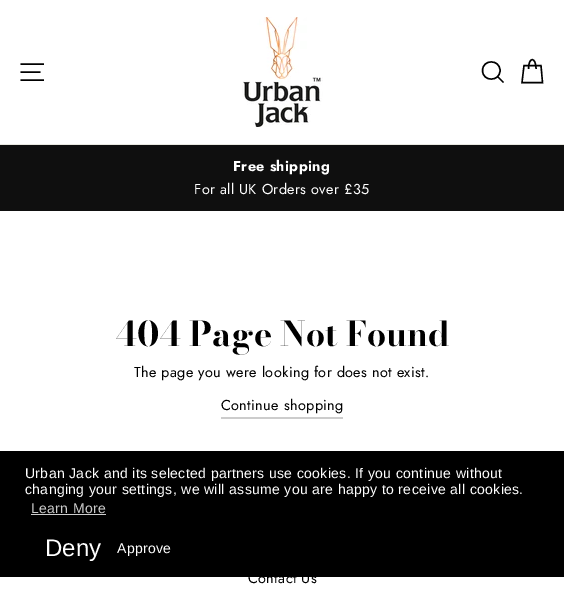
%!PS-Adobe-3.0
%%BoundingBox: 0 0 564 591
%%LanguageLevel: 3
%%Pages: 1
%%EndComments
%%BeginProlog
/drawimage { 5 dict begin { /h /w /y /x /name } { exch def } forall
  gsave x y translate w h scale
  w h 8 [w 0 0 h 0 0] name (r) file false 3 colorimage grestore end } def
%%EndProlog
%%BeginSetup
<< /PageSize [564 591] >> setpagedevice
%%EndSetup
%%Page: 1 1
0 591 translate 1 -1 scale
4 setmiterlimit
1 setgray
0 0 564 591 rectfill
0.91 0.91 0.882 setrgbcolor
0 144 564 1 rectfill
0 setgray
1.4 setlinewidth
newpath 20.5 64 moveto 44 64 lineto 20.5 72 moveto 40.5 72 lineto 20.5 80 moveto 44 80 lineto stroke
(images/1.raw) 242 17 81 110 drawimage
newpath 500 70.5 moveto 500 82 482.5 82 482.5 70.5 curveto 482.5 59 500 59 500 70.5 curveto closepath 503.5 82.5 moveto 497.5 76.5 lineto 528.5 69 moveto 528.5 56.5 536 56.5 536 69 curveto 524 65.5 moveto 541 65.5 lineto 542.5 82.5 lineto 522 82.5 lineto closepath stroke
0.059 setgray
0 145 564 66 rectfill
0.8 setgray
221 417 122 2 rectfill
0 setgray
0 451 564 126 rectfill
0.8 setgray
31 514 75 1 rectfill
/Jost-Bold [14.45 0 0 -14.45 0 0] selectfont
1 setgray
233 171 moveto 0.35 0 (Free shipping) ashow
/Jost-Regular [14.45 0 0 -14.45 0 0] selectfont
194 194 moveto 0.35 0 (For all UK Orders over £35) ashow
/BodoniModa-Bold [34 0 0 -34 0 0] selectfont
0 setgray
115 346 moveto (404 Page Not Found) show
/Jost-Regular [14.45 0 0 -14.45 0 0] selectfont
134 377 moveto 0.35 0 (The page you were looking for does not exist.) ashow
221 410 moveto 0.35 0 (Continue shopping) ashow
248 583 moveto 0.35 0 (Contact Us) ashow
/LiberationSans-Regular [14 0 0 -14 0 0] selectfont
1 setgray
25 478 moveto 0.35 0 (Urban Jack and its selected partners use cookies. If you continue without) ashow
25 494 moveto 0.35 0 (changing your settings, we will assume you are happy to receive all cookies.) ashow
0.8 setgray
31 513 moveto 0.35 0 (Learn More) ashow
/LiberationSans-Regular [24 0 0 -24 0 0] selectfont
1 setgray
45 556 moveto (Deny) show
/LiberationSans-Regular [14 0 0 -14 0 0] selectfont
117 553 moveto 0.35 0 (Approve) ashow
showpage
%%EOF
